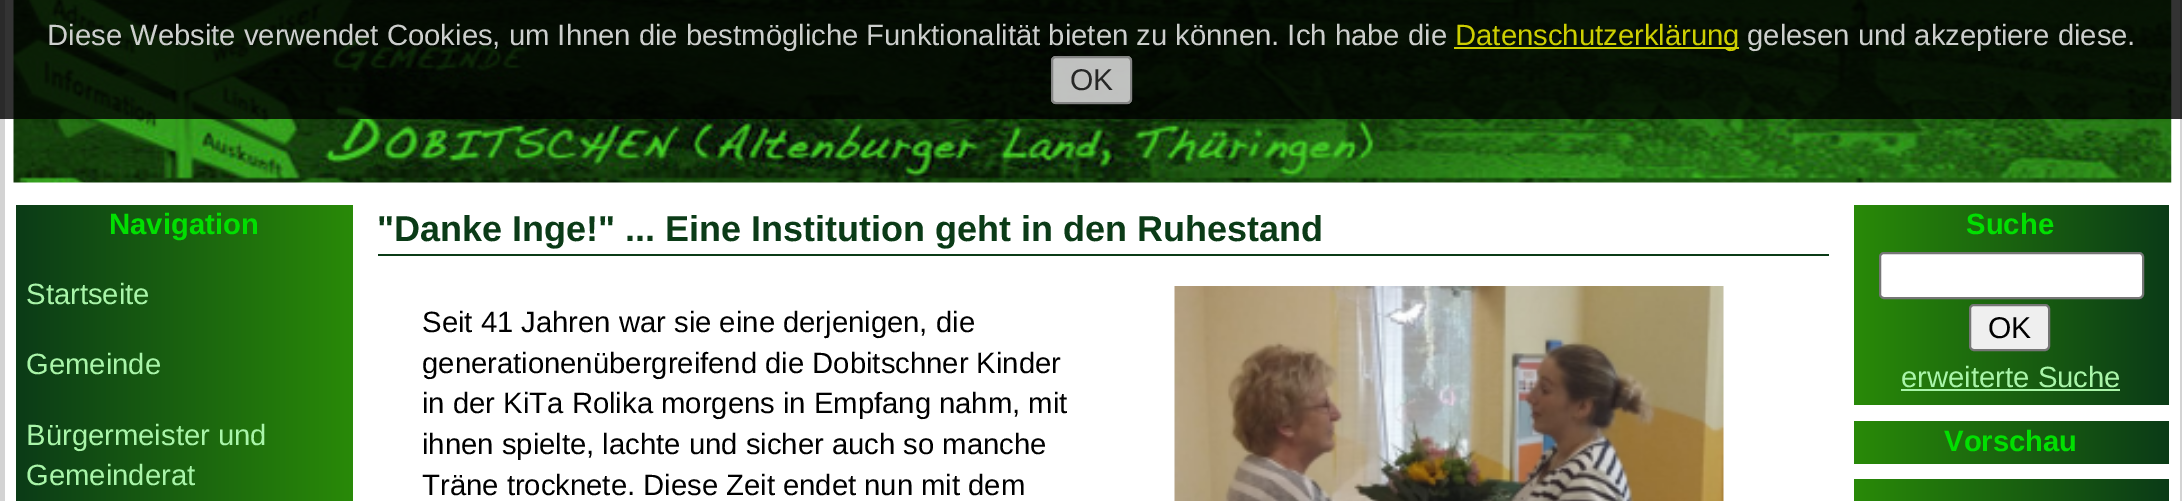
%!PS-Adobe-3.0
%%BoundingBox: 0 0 2182 501
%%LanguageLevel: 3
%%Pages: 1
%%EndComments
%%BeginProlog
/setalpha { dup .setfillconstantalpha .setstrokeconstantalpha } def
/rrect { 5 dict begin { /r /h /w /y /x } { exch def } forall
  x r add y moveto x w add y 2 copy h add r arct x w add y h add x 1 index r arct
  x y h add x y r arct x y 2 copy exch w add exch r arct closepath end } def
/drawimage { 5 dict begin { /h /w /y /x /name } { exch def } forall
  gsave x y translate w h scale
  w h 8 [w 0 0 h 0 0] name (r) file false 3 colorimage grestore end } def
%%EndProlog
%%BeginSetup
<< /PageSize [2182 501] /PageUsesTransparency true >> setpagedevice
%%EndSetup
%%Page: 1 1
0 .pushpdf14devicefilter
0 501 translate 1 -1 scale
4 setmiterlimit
0.827 setgray
0 0 2182 501 rectfill
1 setgray
5 0 2175 501 rectfill
(images/1.raw) 13 0 2159 183 drawimage
0.8 setalpha
0 setgray
0 0 2182 119 rectfill
1 1 0 setrgbcolor
1454 47 285 2 rectfill
0.937 setgray
1051 56 81 48 5 rrect fill
0.463 setgray
2 setlinewidth
1052 57 79 46 4 rrect stroke
1 setalpha
gsave newpath 16 205 moveto 353 205 lineto 353 501 lineto 16 501 lineto closepath clip newpath
<< /ShadingType 2 /ColorSpace /DeviceRGB /Coords [16 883 353 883] /Extend [true true] /Function << /FunctionType 2 /Domain [0 1] /C0 [0.043 0.231 0.09] /C1 [0.161 0.541 0.031] /N 1 >> >> shfill grestore
0.043 0.231 0.09 setrgbcolor
378 254 1451 2 rectfill
(images/2.raw) 1174 286 550 215 drawimage
gsave newpath 1854 205 moveto 2169 205 lineto 2169 405 lineto 1854 405 lineto closepath clip newpath
<< /ShadingType 2 /ColorSpace /DeviceRGB /Coords [2169 305 1854 305] /Extend [true true] /Function << /FunctionType 2 /Domain [0 1] /C0 [0.043 0.231 0.09] /C1 [0.161 0.541 0.031] /N 1 >> >> shfill grestore
1 setgray
1880 253 263 45 4 rrect gsave fill grestore
0.463 setgray
stroke
0.937 setgray
1970 305 79 45 4 rrect gsave fill grestore
0.463 setgray
stroke
0.663 0.961 0.663 setrgbcolor
1901 389 219 2 rectfill
gsave newpath 1854 421 moveto 2169 421 lineto 2169 464 lineto 1854 464 lineto closepath clip newpath
<< /ShadingType 2 /ColorSpace /DeviceRGB /Coords [2169 442 1854 442] /Extend [true true] /Function << /FunctionType 2 /Domain [0 1] /C0 [0.043 0.231 0.09] /C1 [0.161 0.541 0.031] /N 1 >> >> shfill grestore
gsave newpath 1854 479 moveto 2169 479 lineto 2169 501 lineto 1854 501 lineto closepath clip newpath
<< /ShadingType 2 /ColorSpace /DeviceRGB /Coords [2169 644 1854 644] /Extend [true true] /Function << /FunctionType 2 /Domain [0 1] /C0 [0.043 0.231 0.09] /C1 [0.161 0.541 0.031] /N 1 >> >> shfill grestore
/LiberationSans-Regular [29.25 0 0 -29.25 0 0] selectfont
0.804 0.812 0.804 setrgbcolor
47 45 moveto (Diese Website verwendet Cookies, um Ihnen die bestmögliche Funktionalität bieten zu können. Ich habe die) show
0.804 0.812 0.004 setrgbcolor
1455 45 moveto (Datenschutzerklärung) show
0.804 0.812 0.804 setrgbcolor
1747 45 moveto (gelesen und akzeptiere diese.) show
/LiberationSans-Regular [30 0 0 -30 0 0] selectfont
0.149 0.153 0.149 setrgbcolor
1070 90 moveto (OK) show
/LiberationSans-Bold [29.25 0 0 -29.25 0 0] selectfont
0.004 0.875 0.004 setrgbcolor
109 234 moveto (Navigation) show
/LiberationSans-Regular [29.25 0 0 -29.25 0 0] selectfont
0.663 0.961 0.663 setrgbcolor
26 304 moveto (Startseite) show
26 374 moveto (Gemeinde) show
26 445 moveto (Bürgermeister und) show
26 485 moveto (Gemeinderat) show
/LiberationSans-Bold [36 0 0 -36 0 0] selectfont
0.043 0.231 0.09 setrgbcolor
377 241 moveto ("Danke Inge!" ... Eine Institution geht in den Ruhestand) show
/LiberationSans-Regular [29.25 0 0 -29.25 0 0] selectfont
0 setgray
422 332 moveto (Seit 41 Jahren war sie eine derjenigen, die) show
422 373 moveto (generationenübergreifend die Dobitschner Kinder) show
422 413 moveto (in der KiTa Rolika morgens in Empfang nahm, mit) show
422 454 moveto (ihnen spielte, lachte und sicher auch so manche) show
422 495 moveto (Träne trocknete. Diese Zeit endet nun mit dem) show
/LiberationSans-Bold [29.25 0 0 -29.25 0 0] selectfont
0.004 0.875 0.004 setrgbcolor
1966 234 moveto (Suche) show
/LiberationSans-Regular [30 0 0 -30 0 0] selectfont
0 setgray
1988 338 moveto (OK) show
/LiberationSans-Regular [29.25 0 0 -29.25 0 0] selectfont
0.663 0.961 0.663 setrgbcolor
1901 387 moveto (erweiterte Suche) show
/LiberationSans-Bold [29.25 0 0 -29.25 0 0] selectfont
0.004 0.875 0.004 setrgbcolor
1944 451 moveto (Vorschau) show
.poppdf14devicefilter showpage
%%EOF
